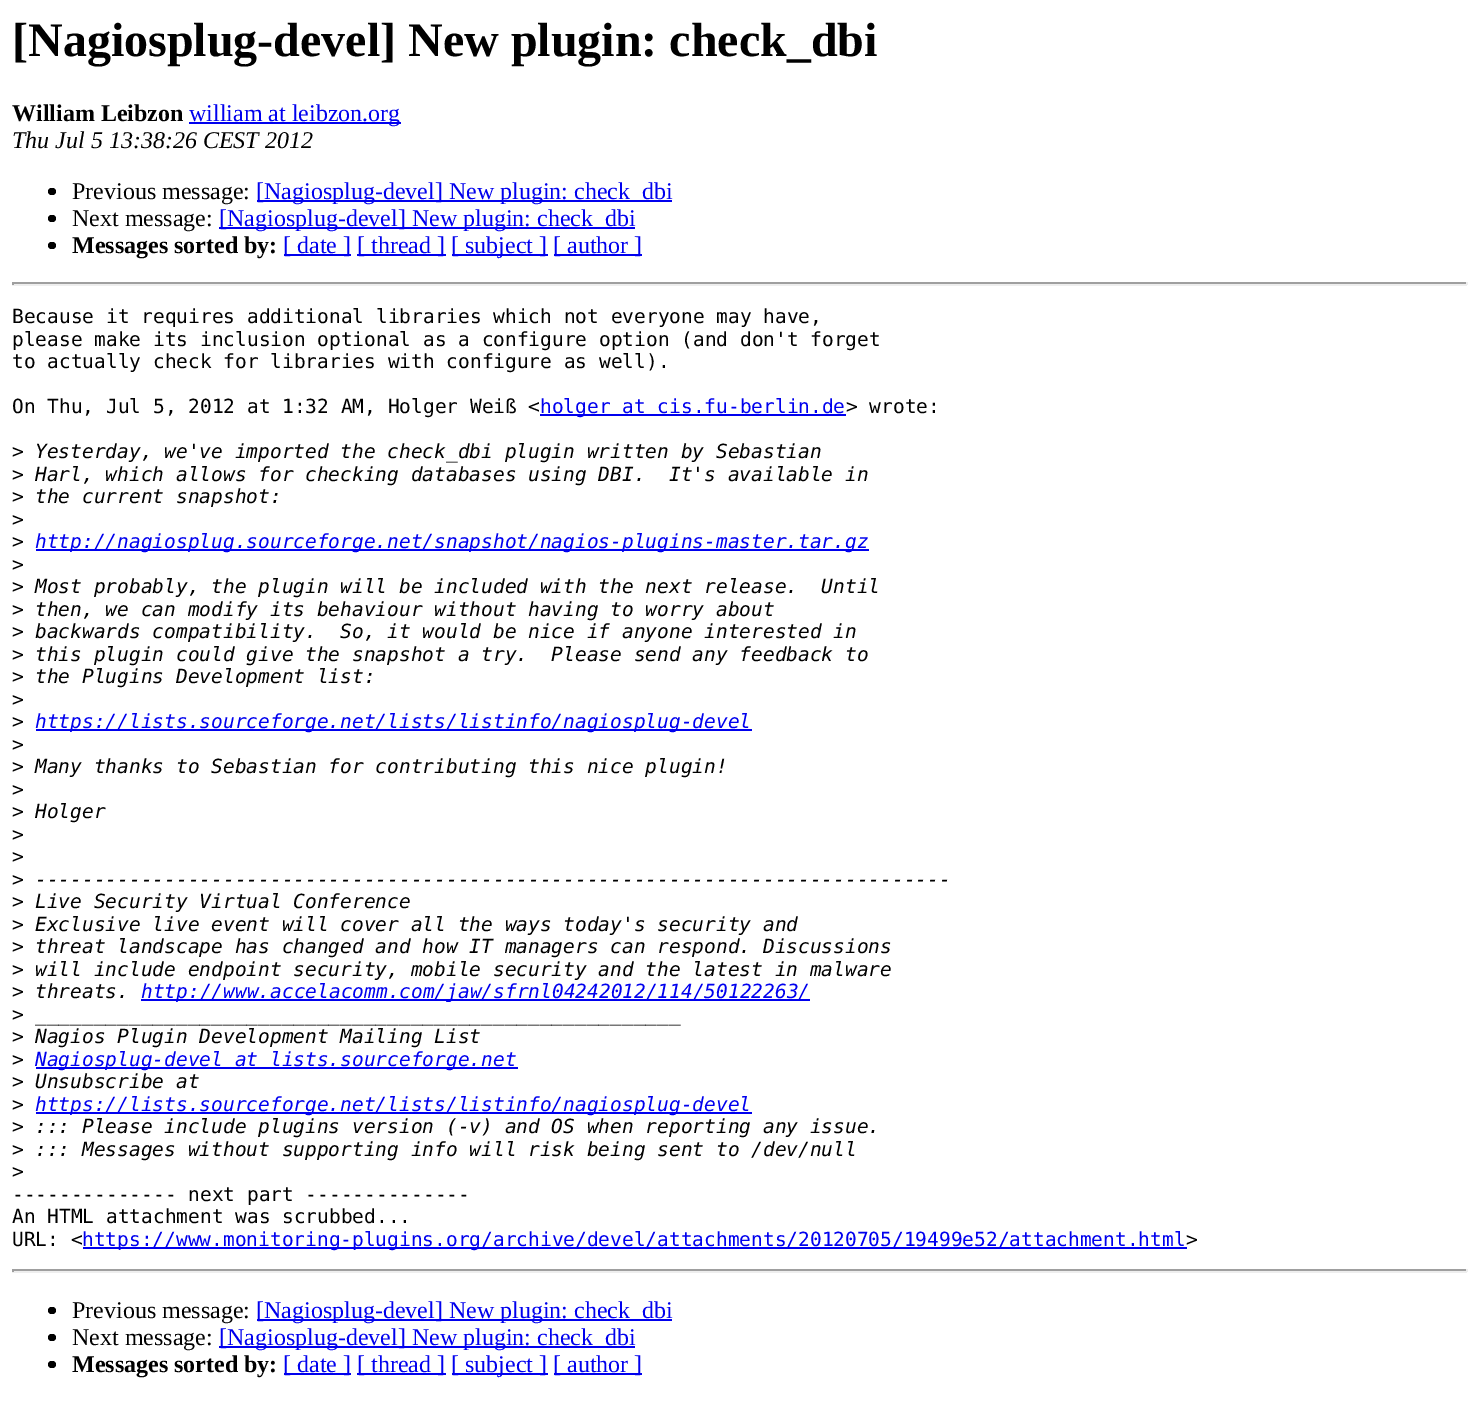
%!PS-Adobe-3.0
%%BoundingBox: 0 0 1478 1401
%%LanguageLevel: 3
%%Pages: 1
%%EndComments
%%BeginProlog
/rrect { 5 dict begin { /r /h /w /y /x } { exch def } forall
  x r add y moveto x w add y 2 copy h add r arct x w add y h add x 1 index r arct
  x y h add x y r arct x y 2 copy exch w add exch r arct closepath end } def
%%EndProlog
%%BeginSetup
<< /PageSize [1478 1401] >> setpagedevice
%%EndSetup
%%Page: 1 1
0 1401 translate 1 -1 scale
4 setmiterlimit
1 setgray
0 0 1478 1401 rectfill
0 0 0.933 setrgbcolor
189 122 212 2 rectfill
0 setgray
48 188 8 7 3.5 rrect fill
0 0 0.933 setrgbcolor
257 200 415 2 rectfill
0 setgray
48 215 8 7 3.5 rrect fill
0 0 0.933 setrgbcolor
219 227 416 2 rectfill
0 setgray
48 242 8 7 3.5 rrect fill
0 0 0.933 setrgbcolor
284 254 67 2 rectfill
357 254 89 2 rectfill
452 254 96 2 rectfill
554 254 88 2 rectfill
0.624 setgray
12 282 1455 2 rectfill
0.933 setgray
1466 282 2 3 rectfill
12 284 1455 2 rectfill
0.624 setgray
12 282 2 3 rectfill
0 0 0.933 setrgbcolor
540 414 306 2 rectfill
36 549 833 2 rectfill
36 729 716 2 rectfill
141 999 669 2 rectfill
36 1067 482 2 rectfill
36 1112 716 2 rectfill
83 1247 1104 2 rectfill
0.624 setgray
12 1269 1455 2 rectfill
0.933 setgray
1466 1269 2 3 rectfill
12 1271 1455 2 rectfill
0.624 setgray
12 1269 2 3 rectfill
0 setgray
48 1307 8 7 3.5 rrect fill
0 0 0.933 setrgbcolor
257 1319 415 2 rectfill
0 setgray
48 1334 8 7 3.5 rrect fill
0 0 0.933 setrgbcolor
219 1346 416 2 rectfill
0 setgray
48 1361 8 7 3.5 rrect fill
0 0 0.933 setrgbcolor
284 1373 67 2 rectfill
357 1373 89 2 rectfill
452 1373 96 2 rectfill
554 1373 88 2 rectfill
/LiberationSerif-Bold [48 0 0 -48 0 0] selectfont
0 setgray
12 56 moveto ([Nagiosplug-devel] New plugin: check_dbi) show
/LiberationSerif-Bold [24 0 0 -24 0 0] selectfont
12 121 moveto (William Leibzon) show
/LiberationSerif-Regular [24 0 0 -24 0 0] selectfont
0 0 0.933 setrgbcolor
189 121 moveto (william at leibzon.org) show
/LiberationSerif-Italic [24 0 0 -24 0 0] selectfont
0 setgray
12 148 moveto (Thu Jul 5 13:38:26 CEST 2012) show
/LiberationSerif-Regular [24 0 0 -24 0 0] selectfont
72 199 moveto (Previous message:) show
0 0 0.933 setrgbcolor
256 199 moveto ([Nagiosplug-devel] New plugin: check_dbi) show
0 setgray
72 226 moveto (Next message:) show
0 0 0.933 setrgbcolor
219 226 moveto ([Nagiosplug-devel] New plugin: check_dbi) show
/LiberationSerif-Bold [24 0 0 -24 0 0] selectfont
0 setgray
72 253 moveto (Messages sorted by:) show
/LiberationSerif-Regular [24 0 0 -24 0 0] selectfont
0 0 0.933 setrgbcolor
283 253 moveto ([ date ]) show
357 253 moveto ([ thread ]) show
451 253 moveto ([ subject ]) show
553 253 moveto ([ author ]) show
/DejaVuSansMono-Regular [19.5 0 0 -19.5 0 0] selectfont
0 setgray
12 323 moveto (Because it requires additional libraries which not everyone may have,) show
12 346 moveto (please make its inclusion optional as a configure option \(and don't forget) show
12 368 moveto (to actually check for libraries with configure as well\).) show
12 413 moveto (On Thu, Jul 5, 2012 at 1:32 AM, Holger Weiß <) show
0 0 0.933 setrgbcolor
540 413 moveto (holger at cis.fu-berlin.de) show
0 setgray
846 413 moveto (> wrote:) show
12 458 moveto (>) show
/DejaVuSansMono-Italic [19.5 0 0 -19.5 0 0] selectfont
35 458 moveto (Yesterday, we've imported the check_dbi plugin written by Sebastian) show
/DejaVuSansMono-Regular [19.5 0 0 -19.5 0 0] selectfont
12 481 moveto (>) show
/DejaVuSansMono-Italic [19.5 0 0 -19.5 0 0] selectfont
35 481 moveto (Harl, which allows for checking databases using DBI.  It's available in) show
/DejaVuSansMono-Regular [19.5 0 0 -19.5 0 0] selectfont
12 503 moveto (>) show
/DejaVuSansMono-Italic [19.5 0 0 -19.5 0 0] selectfont
35 503 moveto (the current snapshot:) show
/DejaVuSansMono-Regular [19.5 0 0 -19.5 0 0] selectfont
12 526 moveto (>) show
12 548 moveto (>) show
/DejaVuSansMono-Italic [19.5 0 0 -19.5 0 0] selectfont
0 0 0.933 setrgbcolor
35 548 moveto (http://nagiosplug.sourceforge.net/snapshot/nagios-plugins-master.tar.gz) show
/DejaVuSansMono-Regular [19.5 0 0 -19.5 0 0] selectfont
0 setgray
12 571 moveto (>) show
12 593 moveto (>) show
/DejaVuSansMono-Italic [19.5 0 0 -19.5 0 0] selectfont
35 593 moveto (Most probably, the plugin will be included with the next release.  Until) show
/DejaVuSansMono-Regular [19.5 0 0 -19.5 0 0] selectfont
12 616 moveto (>) show
/DejaVuSansMono-Italic [19.5 0 0 -19.5 0 0] selectfont
35 616 moveto (then, we can modify its behaviour without having to worry about) show
/DejaVuSansMono-Regular [19.5 0 0 -19.5 0 0] selectfont
12 638 moveto (>) show
/DejaVuSansMono-Italic [19.5 0 0 -19.5 0 0] selectfont
35 638 moveto (backwards compatibility.  So, it would be nice if anyone interested in) show
/DejaVuSansMono-Regular [19.5 0 0 -19.5 0 0] selectfont
12 661 moveto (>) show
/DejaVuSansMono-Italic [19.5 0 0 -19.5 0 0] selectfont
35 661 moveto (this plugin could give the snapshot a try.  Please send any feedback to) show
/DejaVuSansMono-Regular [19.5 0 0 -19.5 0 0] selectfont
12 683 moveto (>) show
/DejaVuSansMono-Italic [19.5 0 0 -19.5 0 0] selectfont
35 683 moveto (the Plugins Development list:) show
/DejaVuSansMono-Regular [19.5 0 0 -19.5 0 0] selectfont
12 706 moveto (>) show
12 728 moveto (>) show
/DejaVuSansMono-Italic [19.5 0 0 -19.5 0 0] selectfont
0 0 0.933 setrgbcolor
35 728 moveto (https://lists.sourceforge.net/lists/listinfo/nagiosplug-devel) show
/DejaVuSansMono-Regular [19.5 0 0 -19.5 0 0] selectfont
0 setgray
12 751 moveto (>) show
12 773 moveto (>) show
/DejaVuSansMono-Italic [19.5 0 0 -19.5 0 0] selectfont
35 773 moveto (Many thanks to Sebastian for contributing this nice plugin!) show
/DejaVuSansMono-Regular [19.5 0 0 -19.5 0 0] selectfont
12 796 moveto (>) show
12 818 moveto (>) show
/DejaVuSansMono-Italic [19.5 0 0 -19.5 0 0] selectfont
35 818 moveto (Holger) show
/DejaVuSansMono-Regular [19.5 0 0 -19.5 0 0] selectfont
12 841 moveto (>) show
12 863 moveto (>) show
12 886 moveto (>) show
/DejaVuSansMono-Italic [19.5 0 0 -19.5 0 0] selectfont
35 886 moveto (------------------------------------------------------------------------------) show
/DejaVuSansMono-Regular [19.5 0 0 -19.5 0 0] selectfont
12 908 moveto (>) show
/DejaVuSansMono-Italic [19.5 0 0 -19.5 0 0] selectfont
35 908 moveto (Live Security Virtual Conference) show
/DejaVuSansMono-Regular [19.5 0 0 -19.5 0 0] selectfont
12 931 moveto (>) show
/DejaVuSansMono-Italic [19.5 0 0 -19.5 0 0] selectfont
35 931 moveto (Exclusive live event will cover all the ways today's security and) show
/DejaVuSansMono-Regular [19.5 0 0 -19.5 0 0] selectfont
12 953 moveto (>) show
/DejaVuSansMono-Italic [19.5 0 0 -19.5 0 0] selectfont
35 953 moveto (threat landscape has changed and how IT managers can respond. Discussions) show
/DejaVuSansMono-Regular [19.5 0 0 -19.5 0 0] selectfont
12 976 moveto (>) show
/DejaVuSansMono-Italic [19.5 0 0 -19.5 0 0] selectfont
35 976 moveto (will include endpoint security, mobile security and the latest in malware) show
/DejaVuSansMono-Regular [19.5 0 0 -19.5 0 0] selectfont
12 998 moveto (>) show
/DejaVuSansMono-Italic [19.5 0 0 -19.5 0 0] selectfont
35 998 moveto (threats.) show
0 0 0.933 setrgbcolor
141 998 moveto (http://www.accelacomm.com/jaw/sfrnl04242012/114/50122263/) show
/DejaVuSansMono-Regular [19.5 0 0 -19.5 0 0] selectfont
0 setgray
12 1021 moveto (>) show
/DejaVuSansMono-Italic [19.5 0 0 -19.5 0 0] selectfont
35 1021 moveto (_______________________________________________________) show
/DejaVuSansMono-Regular [19.5 0 0 -19.5 0 0] selectfont
12 1043 moveto (>) show
/DejaVuSansMono-Italic [19.5 0 0 -19.5 0 0] selectfont
35 1043 moveto (Nagios Plugin Development Mailing List) show
/DejaVuSansMono-Regular [19.5 0 0 -19.5 0 0] selectfont
12 1066 moveto (>) show
/DejaVuSansMono-Italic [19.5 0 0 -19.5 0 0] selectfont
0 0 0.933 setrgbcolor
35 1066 moveto (Nagiosplug-devel at lists.sourceforge.net) show
/DejaVuSansMono-Regular [19.5 0 0 -19.5 0 0] selectfont
0 setgray
12 1088 moveto (>) show
/DejaVuSansMono-Italic [19.5 0 0 -19.5 0 0] selectfont
35 1088 moveto (Unsubscribe at) show
/DejaVuSansMono-Regular [19.5 0 0 -19.5 0 0] selectfont
12 1111 moveto (>) show
/DejaVuSansMono-Italic [19.5 0 0 -19.5 0 0] selectfont
0 0 0.933 setrgbcolor
35 1111 moveto (https://lists.sourceforge.net/lists/listinfo/nagiosplug-devel) show
/DejaVuSansMono-Regular [19.5 0 0 -19.5 0 0] selectfont
0 setgray
12 1133 moveto (>) show
/DejaVuSansMono-Italic [19.5 0 0 -19.5 0 0] selectfont
35 1133 moveto (::: Please include plugins version \(-v\) and OS when reporting any issue.) show
/DejaVuSansMono-Regular [19.5 0 0 -19.5 0 0] selectfont
12 1156 moveto (>) show
/DejaVuSansMono-Italic [19.5 0 0 -19.5 0 0] selectfont
35 1156 moveto (::: Messages without supporting info will risk being sent to /dev/null) show
/DejaVuSansMono-Regular [19.5 0 0 -19.5 0 0] selectfont
12 1178 moveto (>) show
12 1201 moveto (-------------- next part --------------) show
12 1223 moveto (An HTML attachment was scrubbed...) show
12 1246 moveto (URL: <) show
0 0 0.933 setrgbcolor
82 1246 moveto (https://www.monitoring-plugins.org/archive/devel/attachments/20120705/19499e52/attachment.html) show
0 setgray
1186 1246 moveto (>) show
/LiberationSerif-Regular [24 0 0 -24 0 0] selectfont
72 1318 moveto (Previous message:) show
0 0 0.933 setrgbcolor
256 1318 moveto ([Nagiosplug-devel] New plugin: check_dbi) show
0 setgray
72 1345 moveto (Next message:) show
0 0 0.933 setrgbcolor
219 1345 moveto ([Nagiosplug-devel] New plugin: check_dbi) show
/LiberationSerif-Bold [24 0 0 -24 0 0] selectfont
0 setgray
72 1372 moveto (Messages sorted by:) show
/LiberationSerif-Regular [24 0 0 -24 0 0] selectfont
0 0 0.933 setrgbcolor
283 1372 moveto ([ date ]) show
357 1372 moveto ([ thread ]) show
451 1372 moveto ([ subject ]) show
553 1372 moveto ([ author ]) show
showpage
%%EOF
